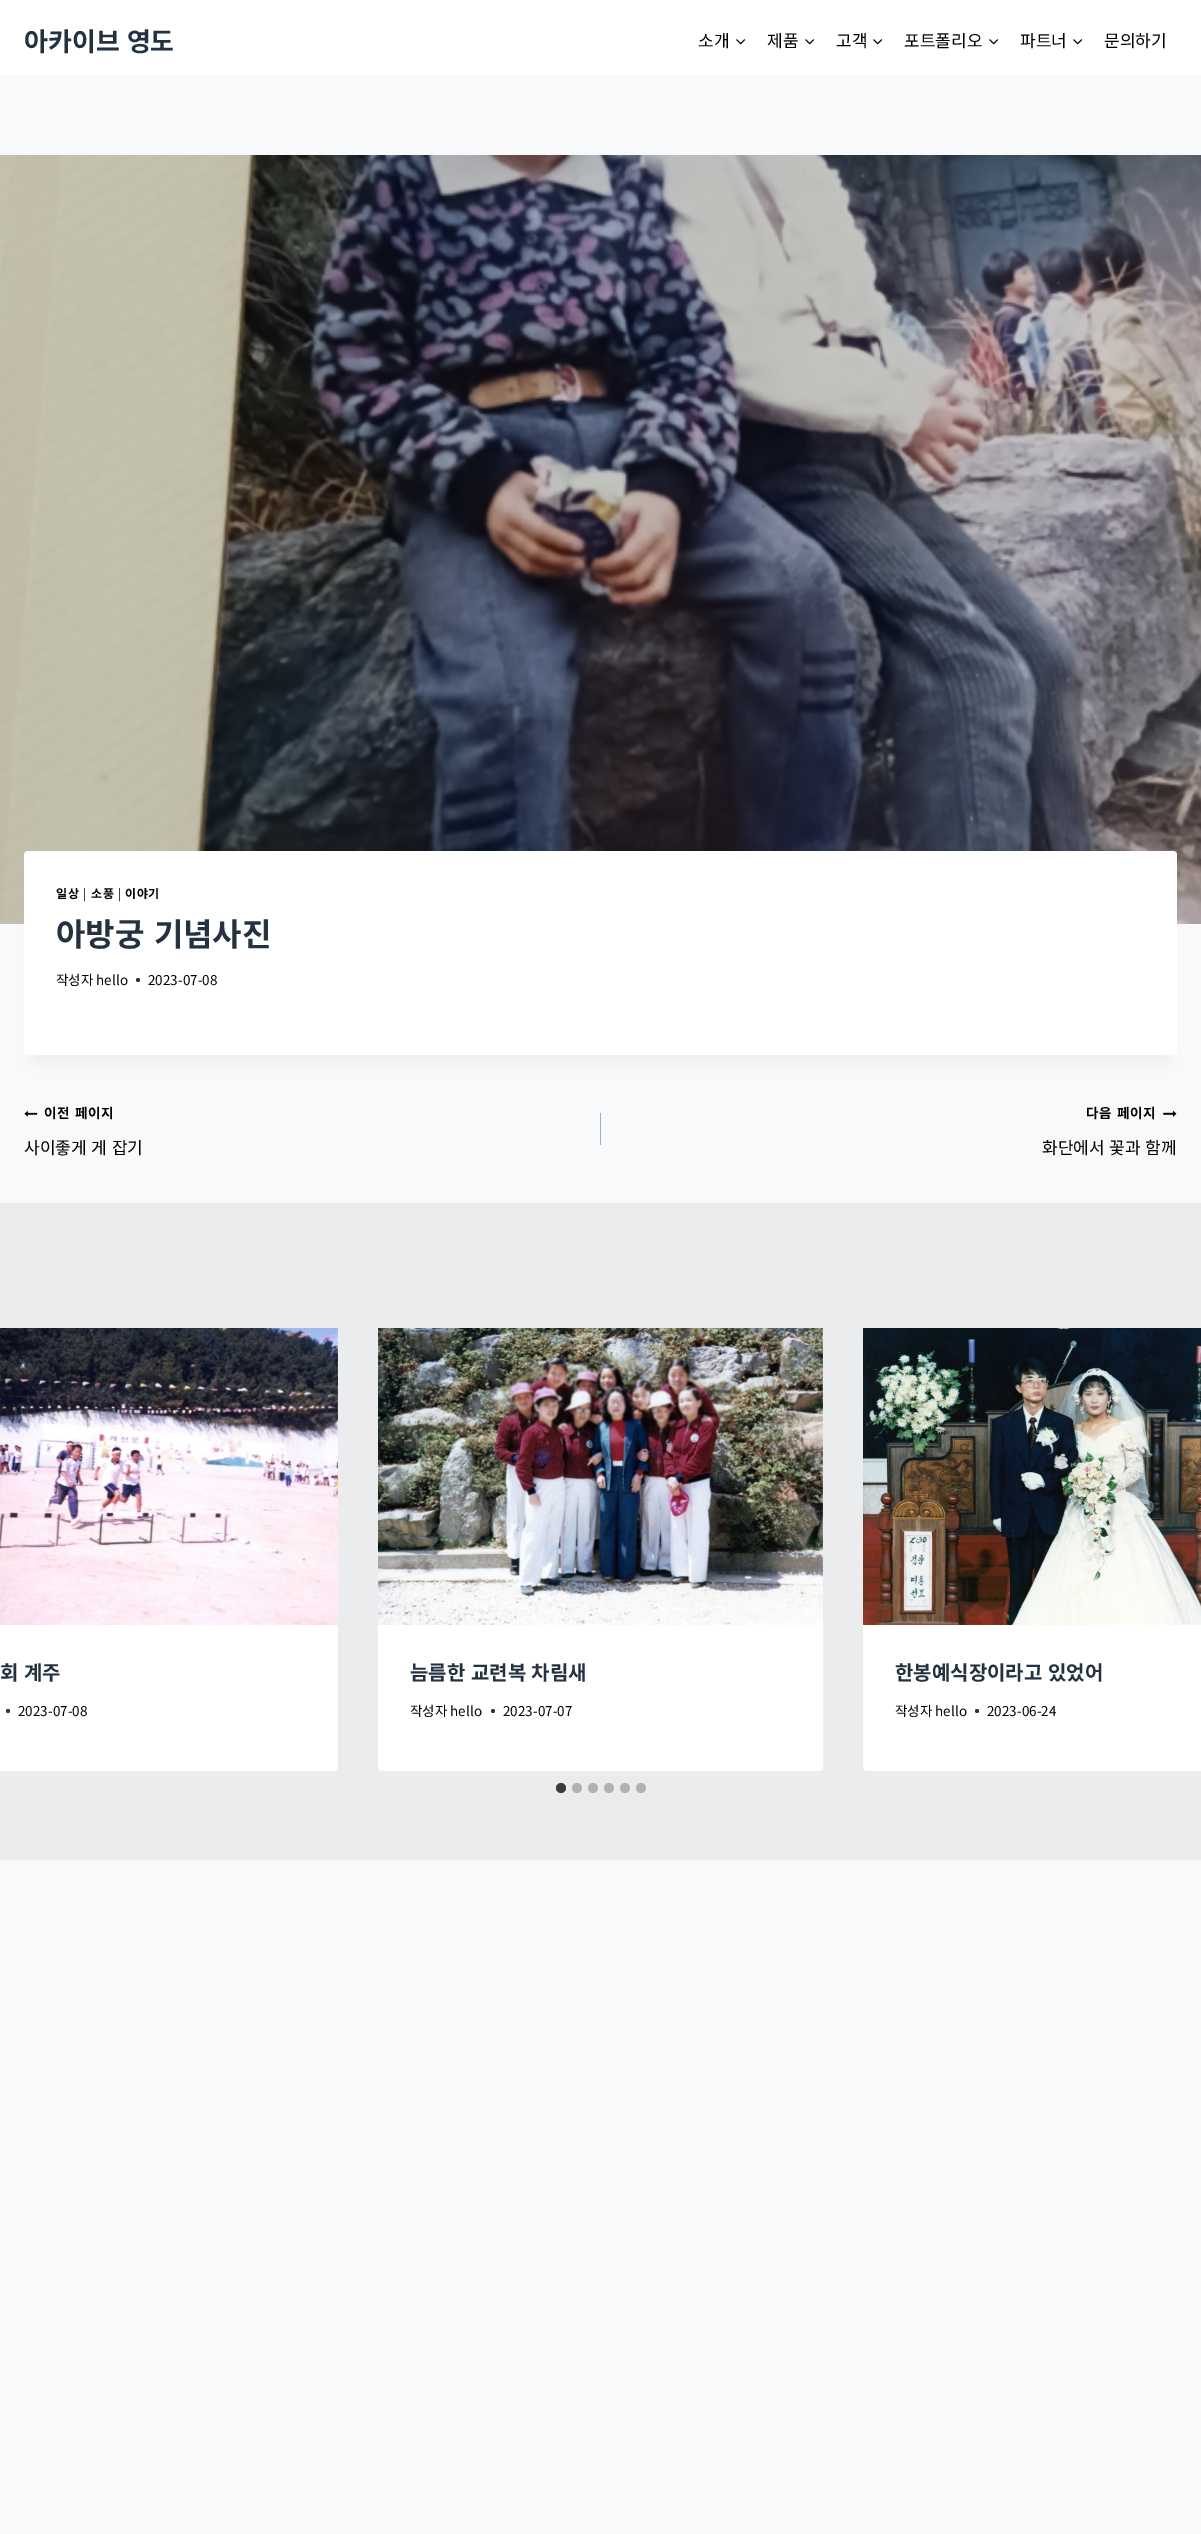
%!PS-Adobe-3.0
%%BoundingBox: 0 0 1201 2534
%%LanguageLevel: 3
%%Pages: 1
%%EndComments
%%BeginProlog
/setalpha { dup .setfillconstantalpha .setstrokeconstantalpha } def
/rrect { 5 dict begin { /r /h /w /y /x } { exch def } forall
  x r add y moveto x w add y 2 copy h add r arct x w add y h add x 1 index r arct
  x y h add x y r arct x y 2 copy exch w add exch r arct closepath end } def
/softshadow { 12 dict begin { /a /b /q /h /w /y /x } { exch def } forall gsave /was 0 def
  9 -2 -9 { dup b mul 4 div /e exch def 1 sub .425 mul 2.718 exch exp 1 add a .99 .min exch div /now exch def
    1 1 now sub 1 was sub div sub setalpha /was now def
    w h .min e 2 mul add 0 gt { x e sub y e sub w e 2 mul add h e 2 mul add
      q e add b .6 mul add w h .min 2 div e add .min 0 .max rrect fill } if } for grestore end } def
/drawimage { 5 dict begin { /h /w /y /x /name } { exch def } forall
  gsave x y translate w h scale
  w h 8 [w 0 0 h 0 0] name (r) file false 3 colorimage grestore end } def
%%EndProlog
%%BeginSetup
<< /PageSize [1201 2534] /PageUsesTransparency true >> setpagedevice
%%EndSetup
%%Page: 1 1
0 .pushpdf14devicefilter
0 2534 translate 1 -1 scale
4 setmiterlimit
0.973 0.976 0.98 setrgbcolor
0 0 1201 2534 rectfill
1 setgray
0 0 1201 75 rectfill
(images/1.raw) 736 39 10 6 drawimage
(images/1.raw) 805 39 10 6 drawimage
(images/1.raw) 873 39 10 6 drawimage
(images/1.raw) 989 39 10 6 drawimage
(images/1.raw) 1073 39 10 6 drawimage
(images/2.raw) 0 155 1201 769 drawimage
0 setgray
34 876 1133 184 0 7.5 0.05 softshadow
1 setgray
24 851 1153 204 4 rrect fill
0.2 setgray
newpath 138 980 2 0 360 arc closepath fill
(images/3.raw) 24 1111 14 6 drawimage
0.627 0.682 0.753 setrgbcolor
600 1113 1 32 rectfill
(images/4.raw) 1163 1110 14 7 drawimage
0.918 0.925 0.933 setrgbcolor
0 1203 1201 657 rectfill
1 setgray
newpath 0 1328 moveto 334 1328 lineto 336 1328 338 1330 338 1332 curveto 338 1767 lineto 338 1769 336 1771 334 1771 curveto 0 1771 lineto closepath fill
(images/5.raw) 0 1328 338 297 drawimage
0.2 setgray
newpath 8 1711 2 0 360 arc closepath fill
1 setgray
378 1328 445 443 4 rrect fill
(images/6.raw) 378 1328 445 297 drawimage
0.2 setgray
newpath 493 1711 2 0 360 arc closepath fill
1 setgray
newpath 867 1328 moveto 1201 1328 lineto 1201 1771 lineto 867 1771 lineto 865 1771 863 1769 863 1767 curveto 863 1332 lineto 863 1330 865 1328 867 1328 curveto closepath fill
(images/7.raw) 863 1328 338 297 drawimage
0.2 setgray
newpath 977 1711 2 0 360 arc closepath fill
0.231 0.231 0.235 setrgbcolor
newpath 561 1788 5 0 360 arc closepath fill
0.69 0.694 0.702 setrgbcolor
newpath 577 1788 5 0 360 arc closepath fill
newpath 593 1788 5 0 360 arc closepath fill
newpath 609 1788 5 0 360 arc closepath fill
newpath 625 1788 5 0 360 arc closepath fill
newpath 641 1788 5 0 360 arc closepath fill
/NotoSansKR-Bold [26 0 0 -26 0 0] selectfont
0.141 0.192 0.255 setrgbcolor
24 51 moveto 1 0 32 (아카이브 영도) widthshow
/NotoSansKR-Regular [17 0 0 -17 0 0] selectfont
0 setgray
698 47 moveto (소개) show
767 47 moveto (제품) show
836 47 moveto (고객) show
904 47 moveto (포트폴리오) show
1020 47 moveto (파트너) show
1104 47 moveto (문의하기) show
/NotoSansKR-Bold [12 0 0 -12 0 0] selectfont
56 898 moveto 0.5 0 (일상) ashow
/NotoSansKR-Regular [12 0 0 -12 0 0] selectfont
83 898 moveto 0.5 0 (|) ashow
/NotoSansKR-Bold [12 0 0 -12 0 0] selectfont
91 898 moveto 0.5 0 (소풍) ashow
/NotoSansKR-Regular [12 0 0 -12 0 0] selectfont
118 898 moveto 0.5 0 (|) ashow
/NotoSansKR-Bold [12 0 0 -12 0 0] selectfont
125 898 moveto 0.5 0 (이야기) ashow
/NotoSansKR-Bold [32 0 0 -32 0 0] selectfont
0.141 0.192 0.255 setrgbcolor
56 946 moveto 2 0 32 (아방궁 기념사진) widthshow
/NotoSansKR-Regular [13.5 0 0 -13.5 0 0] selectfont
0 setgray
56 985 moveto (작성자 hello) show
148 985 moveto (2023-07-08) show
/NotoSansKR-Bold [13.5 0 0 -13.5 0 0] selectfont
44 1118 moveto 1 0 32 0.75 0 (이전 페이지) awidthshow
/NotoSansKR-Regular [17 0 0 -17 0 0] selectfont
24 1154 moveto 1 0 32 (사이좋게 게 잡기) widthshow
/NotoSansKR-Bold [13.5 0 0 -13.5 0 0] selectfont
1086 1118 moveto 1 0 32 0.75 0 (다음 페이지) awidthshow
/NotoSansKR-Regular [17 0 0 -17 0 0] selectfont
1042 1154 moveto 1 0 32 (화단에서 꽃과 함께) widthshow
/NotoSansKR-Bold [20 0 0 -20 0 0] selectfont
0.141 0.192 0.255 setrgbcolor
0 1680 moveto 1 0 32 (회 계주) widthshow
/NotoSansKR-Regular [13.5 0 0 -13.5 0 0] selectfont
0 setgray
18 1716 moveto (2023-07-08) show
/NotoSansKR-Bold [20 0 0 -20 0 0] selectfont
0.141 0.192 0.255 setrgbcolor
410 1680 moveto 1 0 32 (늠름한 교련복 차림새) widthshow
/NotoSansKR-Regular [13.5 0 0 -13.5 0 0] selectfont
0 setgray
410 1716 moveto (작성자 hello) show
503 1716 moveto (2023-07-07) show
/NotoSansKR-Bold [20 0 0 -20 0 0] selectfont
0.141 0.192 0.255 setrgbcolor
895 1680 moveto 1 0 32 (한봉예식장이라고 있었어) widthshow
/NotoSansKR-Regular [13.5 0 0 -13.5 0 0] selectfont
0 setgray
895 1716 moveto (작성자 hello) show
987 1716 moveto (2023-06-24) show
.poppdf14devicefilter showpage
%%EOF
